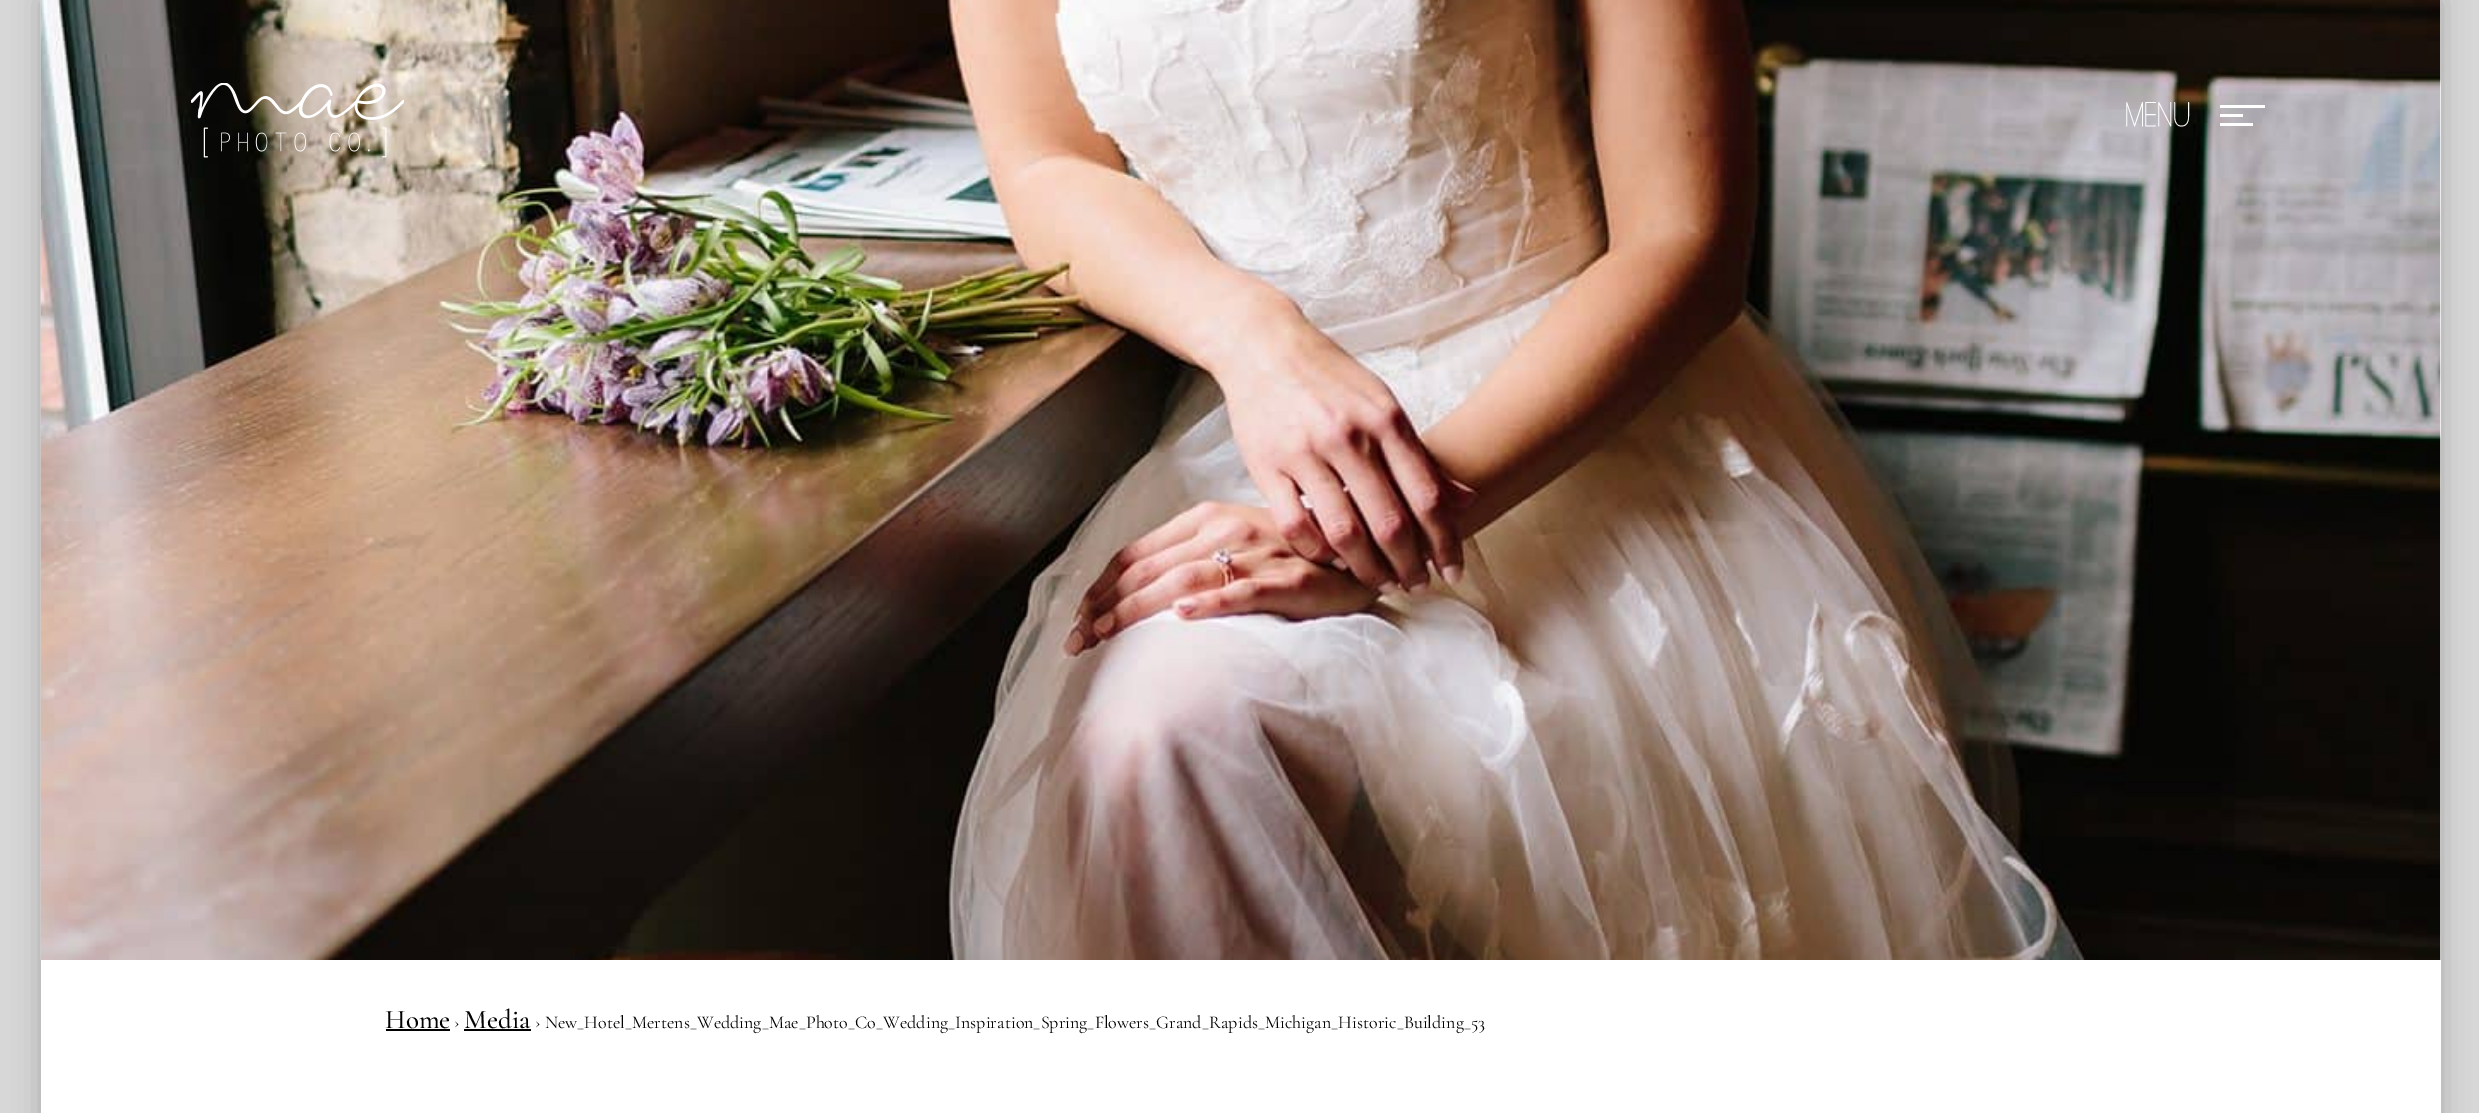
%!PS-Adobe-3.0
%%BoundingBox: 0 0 2479 1113
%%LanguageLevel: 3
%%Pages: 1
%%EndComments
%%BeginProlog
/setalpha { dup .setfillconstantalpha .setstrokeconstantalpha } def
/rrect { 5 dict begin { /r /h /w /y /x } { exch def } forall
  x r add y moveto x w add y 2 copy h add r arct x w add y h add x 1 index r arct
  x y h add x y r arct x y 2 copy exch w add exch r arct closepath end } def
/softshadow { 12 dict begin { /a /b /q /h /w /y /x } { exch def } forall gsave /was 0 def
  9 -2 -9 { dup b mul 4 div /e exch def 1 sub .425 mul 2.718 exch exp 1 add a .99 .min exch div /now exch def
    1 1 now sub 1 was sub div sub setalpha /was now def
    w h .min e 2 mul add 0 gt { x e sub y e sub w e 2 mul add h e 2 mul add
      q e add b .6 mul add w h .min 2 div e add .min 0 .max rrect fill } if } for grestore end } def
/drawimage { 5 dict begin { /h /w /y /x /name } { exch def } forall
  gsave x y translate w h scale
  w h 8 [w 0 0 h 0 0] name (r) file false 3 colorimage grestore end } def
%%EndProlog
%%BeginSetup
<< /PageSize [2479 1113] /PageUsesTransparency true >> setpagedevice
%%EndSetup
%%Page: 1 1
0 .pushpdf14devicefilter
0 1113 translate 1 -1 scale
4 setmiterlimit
0.843 setgray
0 0 2479 1113 rectfill
0 setgray
41 0 2400 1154 0 13.5 0.2 softshadow
1 setgray
41 0 2400 1113 rectfill
(images/1.raw) 40 0 2401 960 drawimage
(images/2.raw) 191 83 213 75 drawimage
2220 105 45 3 rectfill
2220 114 23 3 rectfill
2220 123 33 3 rectfill
0 setgray
386 1029 64 2 rectfill
464 1029 67 2 rectfill
/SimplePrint-Regular [48 0 0 -48 0 0] selectfont
1 setgray
2125 126 moveto (MENU) show
/CormorantGaramond-Medium [27 0 0 -27 0 0] selectfont
0 setgray
385 1028 moveto (Home) show
/CormorantGaramond-Regular [18 0 0 -18 0 0] selectfont
454 1028 moveto (›) show
/CormorantGaramond-Medium [27 0 0 -27 0 0] selectfont
464 1028 moveto (Media) show
/CormorantGaramond-Regular [18 0 0 -18 0 0] selectfont
535 1028 moveto (› New_Hotel_Mertens_Wedding_Mae_Photo_Co_Wedding_Inspiration_Spring_Flowers_Grand_Rapids_Michigan_Historic_Building_53) show
.poppdf14devicefilter showpage
%%EOF
